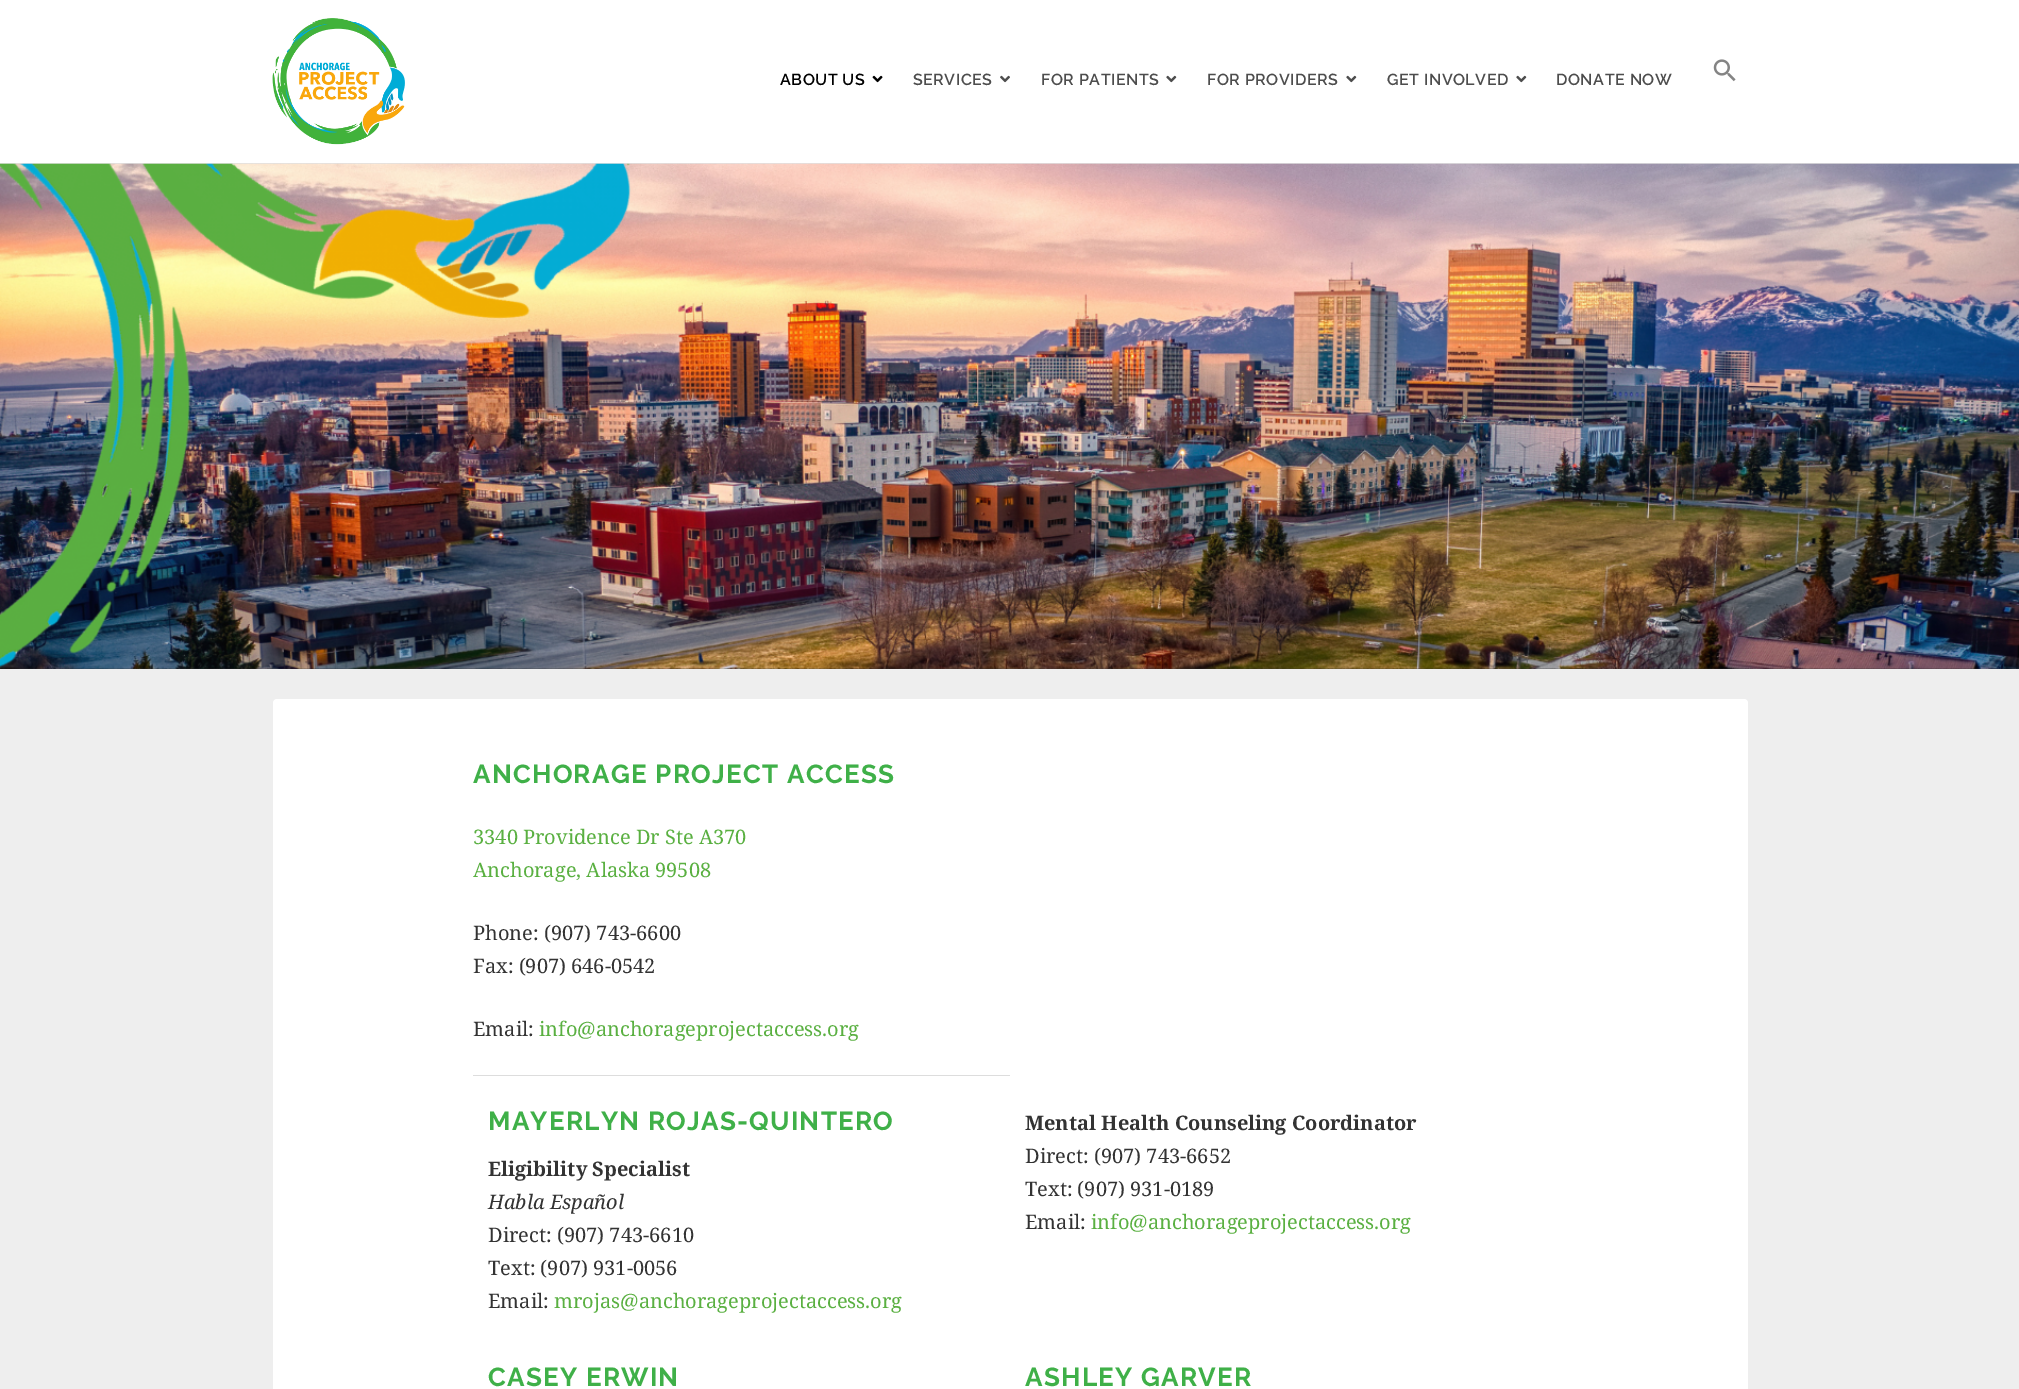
%!PS-Adobe-3.0
%%BoundingBox: 0 0 2019 1389
%%LanguageLevel: 3
%%Pages: 1
%%EndComments
%%BeginProlog
/rrect { 5 dict begin { /r /h /w /y /x } { exch def } forall
  x r add y moveto x w add y 2 copy h add r arct x w add y h add x 1 index r arct
  x y h add x y r arct x y 2 copy exch w add exch r arct closepath end } def
/drawimage { 5 dict begin { /h /w /y /x /name } { exch def } forall
  gsave x y translate w h scale
  w h 8 [w 0 0 h 0 0] name (r) file false 3 colorimage grestore end } def
%%EndProlog
%%BeginSetup
<< /PageSize [2019 1389] >> setpagedevice
%%EndSetup
%%Page: 1 1
0 1389 translate 1 -1 scale
4 setmiterlimit
0.933 setgray
0 0 2019 1389 rectfill
1 setgray
0 0 2019 163 rectfill
0.878 setgray
0 163 2019 1 rectfill
(images/1.raw) 272 18 133 127 drawimage
(images/2.raw) 872 75 11 8 drawimage
(images/3.raw) 1000 75 10 8 drawimage
(images/4.raw) 1166 75 11 8 drawimage
(images/4.raw) 1346 75 11 8 drawimage
(images/4.raw) 1516 75 11 8 drawimage
(images/5.raw) 1713 59 23 23 drawimage
(images/6.raw) 0 163 2019 506 drawimage
1 setgray
273 699 1475 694 4 rrect fill
0.867 setgray
473 1075 537 1 rectfill
/Raleway-SemiBold [16 0 0 -16 0 0] selectfont
0 setgray
780 85 moveto 0.5 0 (ABOUT US) ashow
0.302 setgray
913 85 moveto 0.5 0 (SERVICES) ashow
1041 85 moveto 0.5 0 (FOR PATIENTS) ashow
1207 85 moveto 0.5 0 (FOR PROVIDERS) ashow
1387 85 moveto 0.5 0 (GET INVOLVED) ashow
1556 85 moveto 0.5 0 (DONATE NOW) ashow
/Raleway-Bold [26 0 0 -26 0 0] selectfont
0.247 0.69 0.282 setrgbcolor
473 783 moveto 1.25 0 (ANCHORAGE PROJECT ACCESS) ashow
/NotoSerif-Regular [20 0 0 -20 0 0] selectfont
0.353 0.69 0.255 setrgbcolor
473 844 moveto (3340 Providence Dr Ste A370) show
473 877 moveto (Anchorage, Alaska 99508) show
0.2 setgray
473 940 moveto (Phone: \(907\) 743-6600) show
473 973 moveto (Fax: \(907\) 646-0542) show
473 1036 moveto (Email:) show
0.353 0.69 0.255 setrgbcolor
539 1036 moveto (info@anchorageprojectaccess.org) show
/Raleway-Bold [26 0 0 -26 0 0] selectfont
0.247 0.69 0.282 setrgbcolor
488 1130 moveto 1.25 0 (MAYERLYN ROJAS-QUINTERO) ashow
/NotoSerif-Bold [20 0 0 -20 0 0] selectfont
0.2 setgray
488 1176 moveto (Eligibility Specialist) show
/NotoSerif-Italic [20 0 0 -20 0 0] selectfont
488 1209 moveto (Habla Español) show
/NotoSerif-Regular [20 0 0 -20 0 0] selectfont
488 1242 moveto (Direct: \(907\) 743-6610) show
488 1275 moveto (Text: \(907\) 931-0056) show
488 1308 moveto (Email:) show
0.353 0.69 0.255 setrgbcolor
554 1308 moveto (mrojas@anchorageprojectaccess.org) show
/NotoSerif-Bold [20 0 0 -20 0 0] selectfont
0.2 setgray
1025 1130 moveto (Mental Health Counseling Coordinator) show
/NotoSerif-Regular [20 0 0 -20 0 0] selectfont
1025 1163 moveto (Direct: \(907\) 743-6652) show
1025 1196 moveto (Text: \(907\) 931-0189) show
1025 1229 moveto (Email:) show
0.353 0.69 0.255 setrgbcolor
1091 1229 moveto (info@anchorageprojectaccess.org) show
/Raleway-Bold [26 0 0 -26 0 0] selectfont
0.247 0.69 0.282 setrgbcolor
488 1386 moveto 1.25 0 (CASEY ERWIN) ashow
1025 1386 moveto 1.25 0 (ASHLEY GARVER) ashow
showpage
%%EOF
